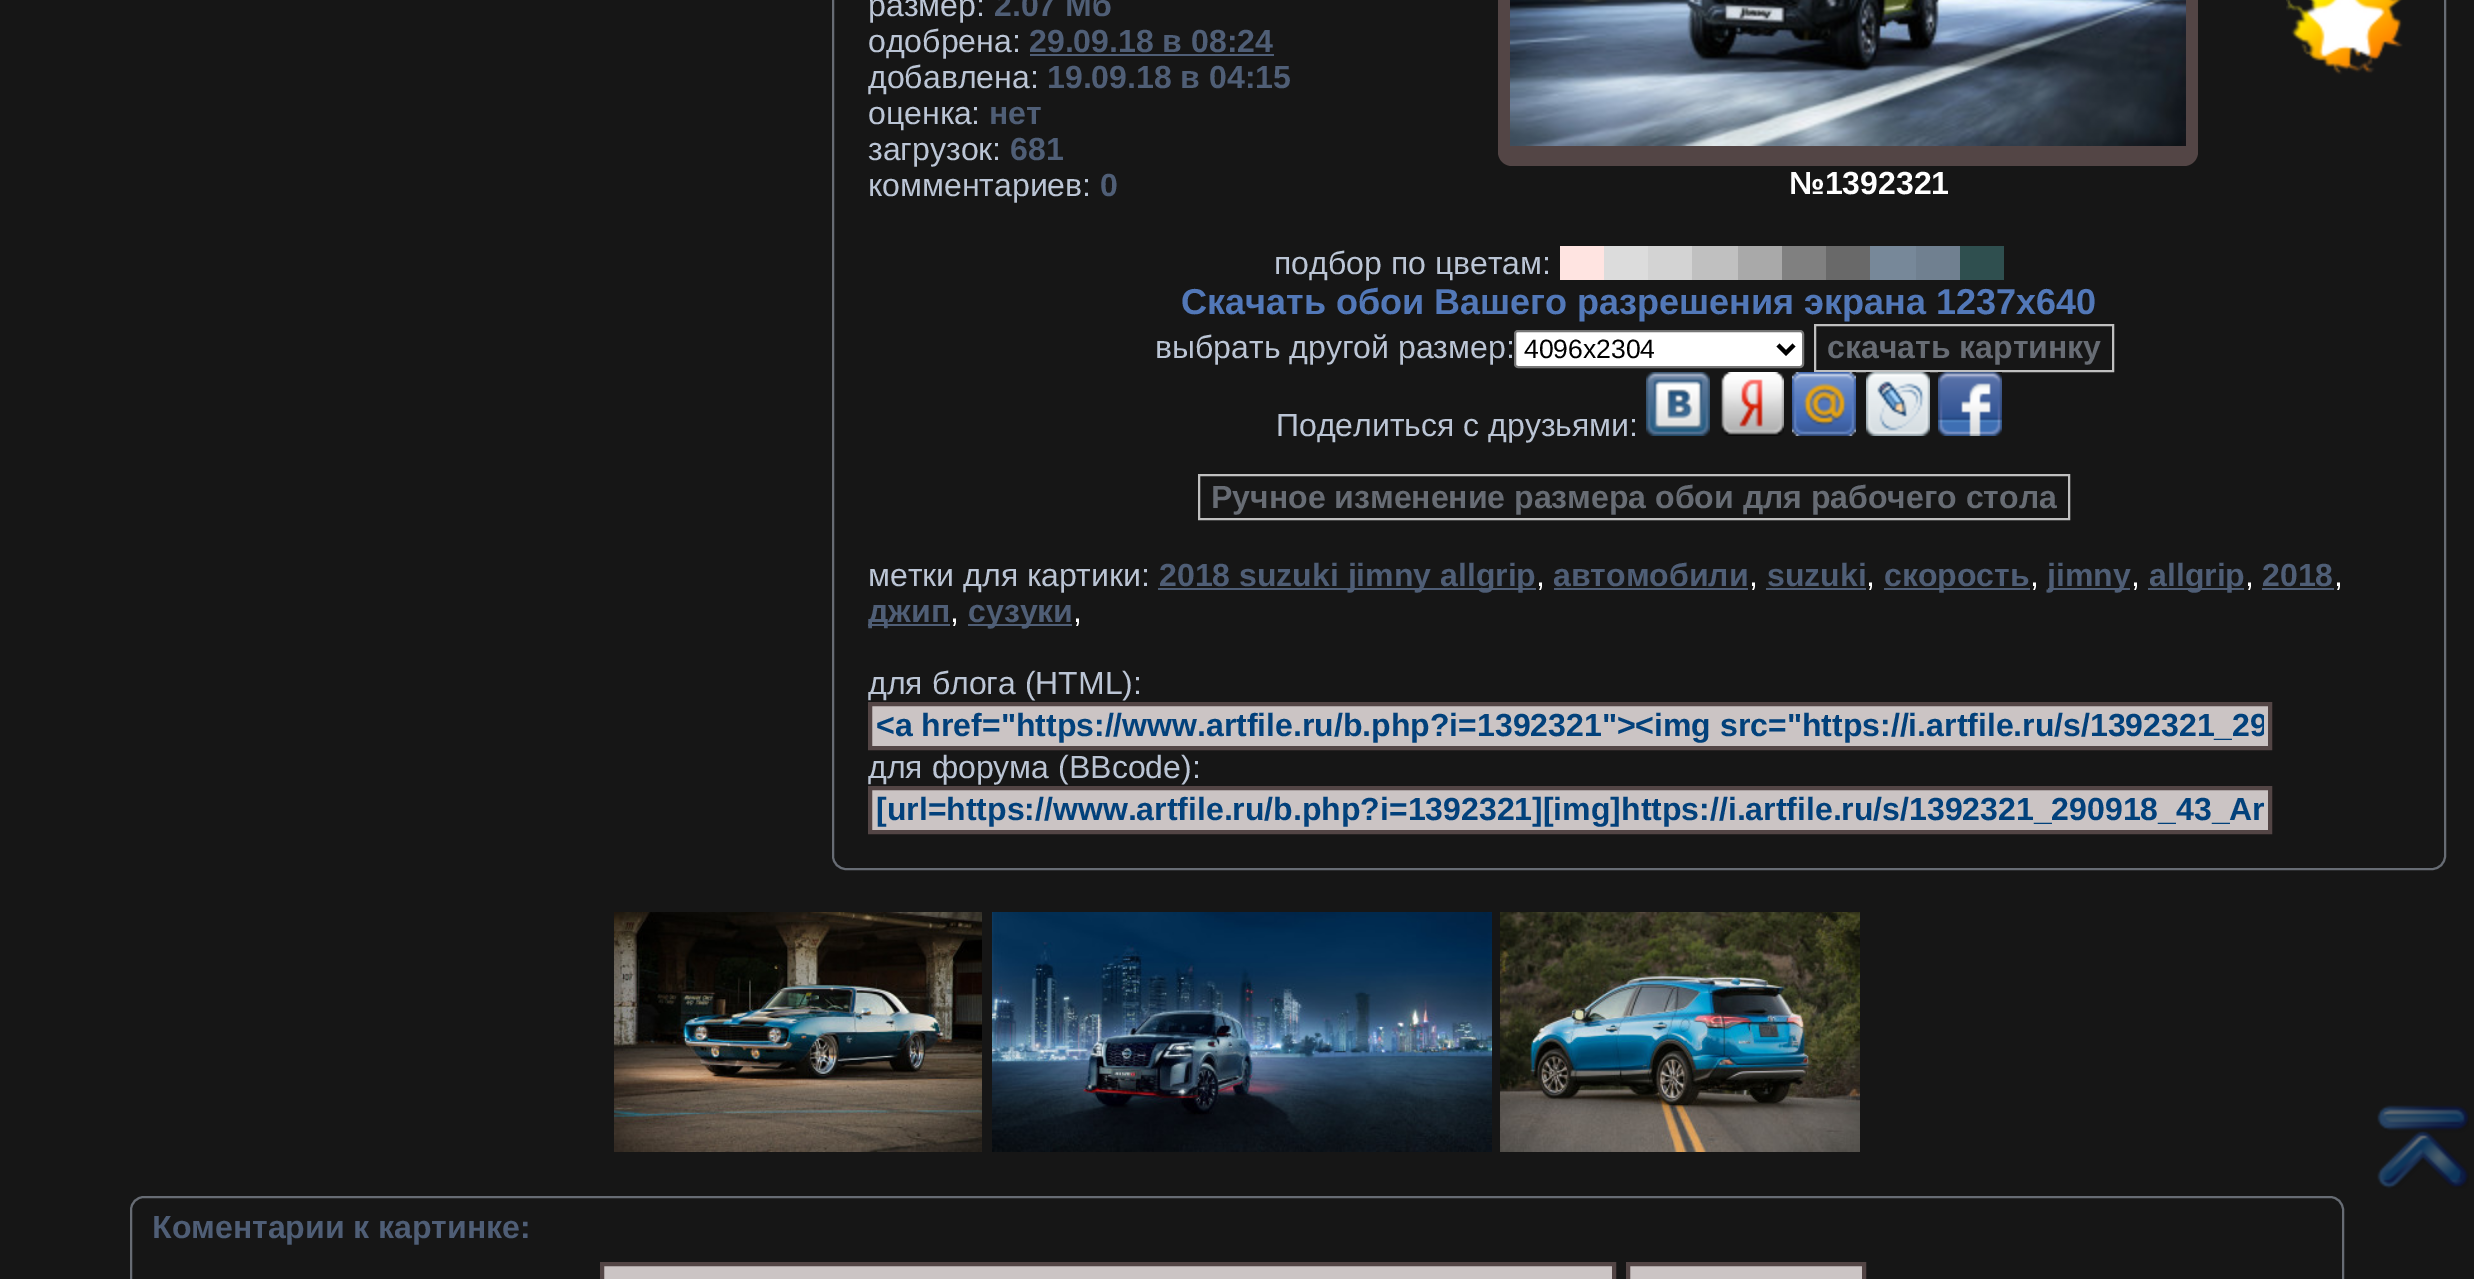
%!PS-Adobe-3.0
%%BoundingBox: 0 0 2474 1279
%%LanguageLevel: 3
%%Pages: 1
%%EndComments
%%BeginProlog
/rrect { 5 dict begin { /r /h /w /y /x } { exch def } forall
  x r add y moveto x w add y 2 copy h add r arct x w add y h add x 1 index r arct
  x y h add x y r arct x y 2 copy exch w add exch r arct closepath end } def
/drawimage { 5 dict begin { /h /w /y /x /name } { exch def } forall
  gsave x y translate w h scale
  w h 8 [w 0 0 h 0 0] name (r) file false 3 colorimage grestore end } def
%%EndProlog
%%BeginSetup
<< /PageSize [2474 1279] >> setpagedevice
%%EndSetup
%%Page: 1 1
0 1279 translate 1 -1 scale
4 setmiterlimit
0.086 setgray
0 0 2474 1279 rectfill
0.404 0.424 0.455 setrgbcolor
2 setlinewidth
833 -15 1612 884 13 rrect stroke
0.31 0.369 0.463 setrgbcolor
1030 54 244 2 rectfill
(images/1.raw) 2286 0 117 75 drawimage
0.325 0.271 0.271 setrgbcolor
1498 -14 700 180 14 rrect fill
(images/2.raw) 1510 0 676 146 drawimage
1 0.894 0.882 setrgbcolor
1560 246 44 34 rectfill
0.863 setgray
1604 246 44 34 rectfill
0.827 setgray
1648 246 44 34 rectfill
0.753 setgray
1692 246 46 34 rectfill
0.663 setgray
1738 246 44 34 rectfill
0.502 setgray
1782 246 44 34 rectfill
0.412 setgray
1826 246 44 34 rectfill
0.467 0.533 0.6 setrgbcolor
1870 246 46 34 rectfill
0.439 0.502 0.565 setrgbcolor
1916 246 44 34 rectfill
0.184 0.31 0.31 setrgbcolor
1960 246 44 34 rectfill
1 setgray
1515 331 288 36 3 rrect gsave fill grestore
0.463 setgray
stroke
0 setgray
4 setlinewidth
newpath 1778 345 moveto 1786 353 lineto 1794 345 lineto stroke
0.753 setgray
2 setlinewidth
1815 325 298 46 rectstroke
(images/3.raw) 1646 372 64 64 drawimage
(images/4.raw) 1721 372 63 64 drawimage
(images/5.raw) 1792 372 64 64 drawimage
(images/6.raw) 1866 372 64 64 drawimage
(images/7.raw) 1938 372 64 64 drawimage
1199 475 870 44 rectstroke
0.31 0.369 0.463 setrgbcolor
1158 588 378 2 rectfill
1554 588 194 2 rectfill
1766 588 100 2 rectfill
1884 588 146 2 rectfill
2048 588 82 2 rectfill
2148 588 96 2 rectfill
2262 588 72 2 rectfill
868 624 82 2 rectfill
968 624 104 2 rectfill
0.796 0.769 0.769 setrgbcolor
newpath 870 704 moveto 2270 704 lineto 2270 748 lineto 870 748 lineto closepath gsave fill grestore
0.325 0.271 0.271 setrgbcolor
4 setlinewidth
stroke
0.796 0.769 0.769 setrgbcolor
newpath 870 788 moveto 2270 788 lineto 2270 832 lineto 870 832 lineto closepath gsave fill grestore
0.325 0.271 0.271 setrgbcolor
stroke
(images/8.raw) 614 912 368 240 drawimage
(images/9.raw) 992 912 500 240 drawimage
(images/10.raw) 1500 912 360 240 drawimage
0.404 0.424 0.455 setrgbcolor
2 setlinewidth
131 1197 2212 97 13 rrect stroke
0.796 0.769 0.769 setrgbcolor
newpath 602 1264 moveto 1614 1264 lineto 1614 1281 lineto 602 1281 lineto closepath gsave fill grestore
0.325 0.271 0.271 setrgbcolor
4 setlinewidth
stroke
0.796 0.769 0.769 setrgbcolor
newpath 1628 1264 moveto 1864 1264 lineto 1864 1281 lineto 1628 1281 lineto closepath gsave fill grestore
0.325 0.271 0.271 setrgbcolor
stroke
(images/11.raw) 2377 1105 92 84 drawimage
/LiberationSans-Regular [32 0 0 -32 0 0] selectfont
0.733 0.773 0.835 setrgbcolor
868 16 moveto (размер:) show
/LiberationSans-Bold [32 0 0 -32 0 0] selectfont
0.31 0.369 0.463 setrgbcolor
994 16 moveto (2.07 Мб) show
/LiberationSans-Regular [32 0 0 -32 0 0] selectfont
0.733 0.773 0.835 setrgbcolor
868 52 moveto (одобрена:) show
/LiberationSans-Bold [32 0 0 -32 0 0] selectfont
0.31 0.369 0.463 setrgbcolor
1029 52 moveto (29.09.18 в 08:24) show
/LiberationSans-Regular [32 0 0 -32 0 0] selectfont
0.733 0.773 0.835 setrgbcolor
868 88 moveto (добавлена:) show
/LiberationSans-Bold [32 0 0 -32 0 0] selectfont
0.31 0.369 0.463 setrgbcolor
1047 88 moveto (19.09.18 в 04:15) show
/LiberationSans-Regular [32 0 0 -32 0 0] selectfont
0.733 0.773 0.835 setrgbcolor
868 124 moveto (оценка:) show
/LiberationSans-Bold [32 0 0 -32 0 0] selectfont
0.31 0.369 0.463 setrgbcolor
989 124 moveto (нет) show
/LiberationSans-Regular [32 0 0 -32 0 0] selectfont
0.733 0.773 0.835 setrgbcolor
868 160 moveto (загрузок:) show
/LiberationSans-Bold [32 0 0 -32 0 0] selectfont
0.31 0.369 0.463 setrgbcolor
1010 160 moveto (681) show
/LiberationSans-Regular [32 0 0 -32 0 0] selectfont
0.733 0.773 0.835 setrgbcolor
868 196 moveto (комментариев:) show
/LiberationSans-Bold [32 0 0 -32 0 0] selectfont
0.31 0.369 0.463 setrgbcolor
1100 196 moveto (0) show
1 setgray
1789 194 moveto (№1392321) show
/LiberationSans-Regular [32 0 0 -32 0 0] selectfont
0.733 0.773 0.835 setrgbcolor
1274 274 moveto (подбор по цветам:) show
/LiberationSans-Bold [36 0 0 -36 0 0] selectfont
0.322 0.471 0.722 setrgbcolor
1181 314 moveto (Скачать обои Вашего разрешения экрана 1237x640) show
/LiberationSans-Regular [32 0 0 -32 0 0] selectfont
0.733 0.773 0.835 setrgbcolor
1155 358 moveto (выбрать другой размер:) show
/LiberationSans-Regular [26.5 0 0 -26.5 0 0] selectfont
0 setgray
1524 358 moveto (4096x2304) show
/LiberationSans-Bold [32 0 0 -32 0 0] selectfont
0.404 0.424 0.455 setrgbcolor
1827 358 moveto (скачать картинку) show
/LiberationSans-Regular [32 0 0 -32 0 0] selectfont
0.733 0.773 0.835 setrgbcolor
1276 436 moveto (Поделиться с друзьями:) show
/LiberationSans-Bold [32 0 0 -32 0 0] selectfont
0.404 0.424 0.455 setrgbcolor
1211 508 moveto (Ручное изменение размера обои для рабочего стола) show
/LiberationSans-Regular [32 0 0 -32 0 0] selectfont
0.733 0.773 0.835 setrgbcolor
868 586 moveto (метки для картики:) show
/LiberationSans-Bold [32 0 0 -32 0 0] selectfont
0.31 0.369 0.463 setrgbcolor
1159 586 moveto (2018 suzuki jimny allgrip) show
/LiberationSans-Regular [32 0 0 -32 0 0] selectfont
1 setgray
1536 586 moveto (,) show
/LiberationSans-Bold [32 0 0 -32 0 0] selectfont
0.31 0.369 0.463 setrgbcolor
1553 586 moveto (автомобили) show
/LiberationSans-Regular [32 0 0 -32 0 0] selectfont
1 setgray
1749 586 moveto (,) show
/LiberationSans-Bold [32 0 0 -32 0 0] selectfont
0.31 0.369 0.463 setrgbcolor
1767 586 moveto (suzuki) show
/LiberationSans-Regular [32 0 0 -32 0 0] selectfont
1 setgray
1866 586 moveto (,) show
/LiberationSans-Bold [32 0 0 -32 0 0] selectfont
0.31 0.369 0.463 setrgbcolor
1884 586 moveto (скорость) show
/LiberationSans-Regular [32 0 0 -32 0 0] selectfont
1 setgray
2030 586 moveto (,) show
/LiberationSans-Bold [32 0 0 -32 0 0] selectfont
0.31 0.369 0.463 setrgbcolor
2047 586 moveto (jimny) show
/LiberationSans-Regular [32 0 0 -32 0 0] selectfont
1 setgray
2131 586 moveto (,) show
/LiberationSans-Bold [32 0 0 -32 0 0] selectfont
0.31 0.369 0.463 setrgbcolor
2149 586 moveto (allgrip) show
/LiberationSans-Regular [32 0 0 -32 0 0] selectfont
1 setgray
2245 586 moveto (,) show
/LiberationSans-Bold [32 0 0 -32 0 0] selectfont
0.31 0.369 0.463 setrgbcolor
2262 586 moveto (2018) show
/LiberationSans-Regular [32 0 0 -32 0 0] selectfont
1 setgray
2334 586 moveto (,) show
/LiberationSans-Bold [32 0 0 -32 0 0] selectfont
0.31 0.369 0.463 setrgbcolor
868 622 moveto (джип) show
/LiberationSans-Regular [32 0 0 -32 0 0] selectfont
1 setgray
950 622 moveto (,) show
/LiberationSans-Bold [32 0 0 -32 0 0] selectfont
0.31 0.369 0.463 setrgbcolor
968 622 moveto (сузуки) show
/LiberationSans-Regular [32 0 0 -32 0 0] selectfont
1 setgray
1073 622 moveto (,) show
0.733 0.773 0.835 setrgbcolor
868 694 moveto (для блога \(HTML\):) show
gsave
876 708 1388 36 rectclip
/LiberationSans-Bold [32 0 0 -32 0 0] selectfont
0.008 0.255 0.482 setrgbcolor
876 736 moveto (<a href="https://www.artfile.ru/b.php?i=1392321"><img src="https://i.artfile.ru/s/1392321_29) show
grestore
868 778 moveto (для форума \(BBcode\):) show
gsave
876 792 1388 36 rectclip
/LiberationSans-Bold [32 0 0 -32 0 0] selectfont
0.008 0.255 0.482 setrgbcolor
876 820 moveto ([url=https://www.artfile.ru/b.php?i=1392321][img]https://i.artfile.ru/s/1392321_290918_43_Ar) show
grestore
/LiberationSans-Bold [32 0 0 -32 0 0] selectfont
0.31 0.369 0.463 setrgbcolor
152 1238 moveto (Коментарии к картинке:) show
showpage
%%EOF
